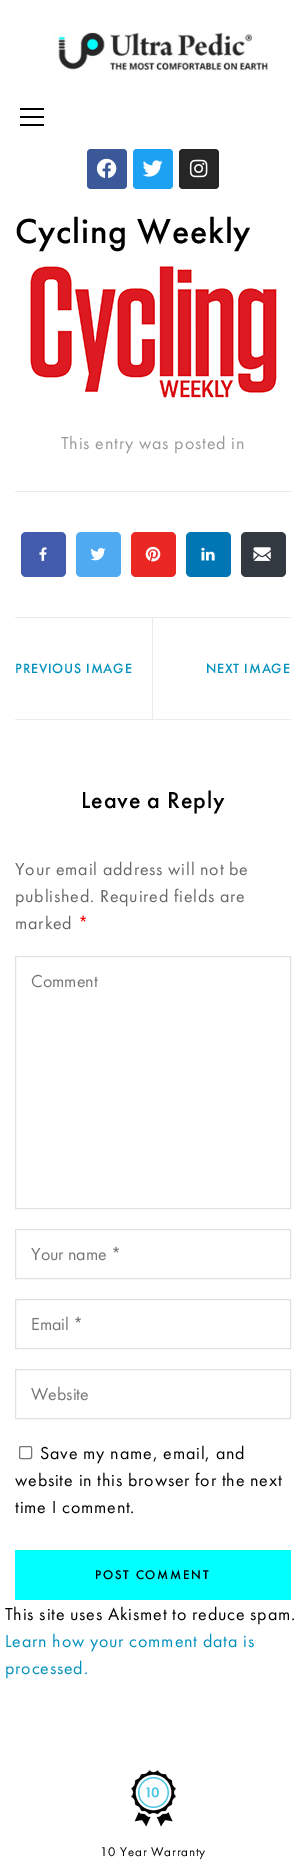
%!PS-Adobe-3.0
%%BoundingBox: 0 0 306 1867
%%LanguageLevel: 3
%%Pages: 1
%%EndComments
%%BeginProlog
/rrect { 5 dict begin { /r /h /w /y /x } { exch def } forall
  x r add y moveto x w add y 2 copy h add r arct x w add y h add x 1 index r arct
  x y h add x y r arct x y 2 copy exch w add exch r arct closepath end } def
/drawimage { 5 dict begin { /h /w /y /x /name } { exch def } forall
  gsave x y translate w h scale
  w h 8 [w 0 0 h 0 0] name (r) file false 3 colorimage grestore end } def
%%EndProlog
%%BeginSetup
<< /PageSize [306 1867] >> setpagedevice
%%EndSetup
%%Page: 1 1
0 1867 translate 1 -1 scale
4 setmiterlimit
1 setgray
0 0 306 1867 rectfill
(images/1.raw) 54 31 216 42 drawimage
0 setgray
20 116 24 2 rectfill
20 108 24 2 rectfill
20 124 24 2 rectfill
0.231 0.349 0.596 setrgbcolor
87 149 40 40 4 rrect fill
(images/2.raw) 96 158 21 20 drawimage
0.114 0.631 0.949 setrgbcolor
133 149 40 40 4 rrect fill
(images/3.raw) 142 160 21 17 drawimage
0.149 setgray
179 149 40 40 4 rrect fill
(images/4.raw) 189 159 19 19 drawimage
(images/5.raw) 30 266 247 132 drawimage
0.922 setgray
15 491 276 1 rectfill
15 617 276 1 rectfill
0.259 0.357 0.678 setrgbcolor
21 532 45 45 5 rrect fill
(images/6.raw) 39 547 8 14 drawimage
0.314 0.667 0.945 setrgbcolor
76 532 45 45 5 rrect fill
(images/7.raw) 90 548 16 13 drawimage
0.922 0.153 0.137 setrgbcolor
131 532 45 45 5 rrect fill
(images/8.raw) 145 546 16 16 drawimage
0 0.467 0.706 setrgbcolor
186 532 45 45 5 rrect fill
(images/9.raw) 201 547 14 14 drawimage
0.2 0.224 0.251 setrgbcolor
241 532 45 45 5 rrect fill
(images/10.raw) 253 547 18 14 drawimage
0.922 setgray
15 719 276 1 rectfill
152 618 1 101 rectfill
0.882 setgray
15.5 956.5 275 252 rectstroke
15.5 1229.5 275 49 rectstroke
15.5 1299.5 275 49 rectstroke
15.5 1369.5 275 49 rectstroke
0.463 setgray
19.5 1446.5 12 12 1.5 rrect stroke
0 1 1 setrgbcolor
15 1550 276 50 rectfill
(images/11.raw) 131 1770 45 57 drawimage
/FuturaPT-Medium [36 0 0 -36 0 0] selectfont
0 setgray
15 243 moveto 0.8 0 (Cycling Weekly) ashow
/FuturaPT-Regular [18 0 0 -18 0 0] selectfont
0.6 setgray
61 449 moveto 0.8 0 (This entry was posted in) ashow
/FuturaPT-Medium [14 0 0 -14 0 0] selectfont
0 0.565 0.737 setrgbcolor
15 673 moveto 0.8 0 (PREVIOUS IMAGE) ashow
206 673 moveto 0.8 0 (NEXT IMAGE) ashow
/FuturaPT-Medium [24 0 0 -24 0 0] selectfont
0 setgray
81 808 moveto 0.8 0 (Leave a Reply) ashow
/FuturaPT-Regular [18 0 0 -18 0 0] selectfont
0.4 setgray
15 875 moveto 0.8 0 (Your email address will not be) ashow
15 902 moveto 0.8 0 (published. Required fields are) ashow
15 929 moveto 0.8 0 (marked) ashow
1 0 0 setrgbcolor
78 929 moveto 0.8 0 (*) ashow
0.459 setgray
31 987 moveto (Comment) show
31 1260 moveto (Your name *) show
31 1330 moveto (Email *) show
31 1400 moveto (Website) show
0 setgray
40 1459 moveto 0.8 0 (Save my name, email, and) ashow
15 1486 moveto 0.8 0 (website in this browser for the next) ashow
15 1513 moveto 0.8 0 (time I comment.) ashow
/FuturaPT-Medium [13 0 0 -13 0 0] selectfont
95 1579 moveto 1.75 0 (POST COMMENT) ashow
/FuturaPT-Regular [18 0 0 -18 0 0] selectfont
5 1620 moveto 0.8 0 (This site uses Akismet to reduce spam.) ashow
0 0.565 0.737 setrgbcolor
5 1647 moveto 0.8 0 (Learn how your comment data is) ashow
5 1674 moveto 0.8 0 (processed.) ashow
/FuturaPT-Regular [13 0 0 -13 0 0] selectfont
0 setgray
100 1856 moveto 0.8 0 (10 Year Warranty) ashow
showpage
%%EOF
